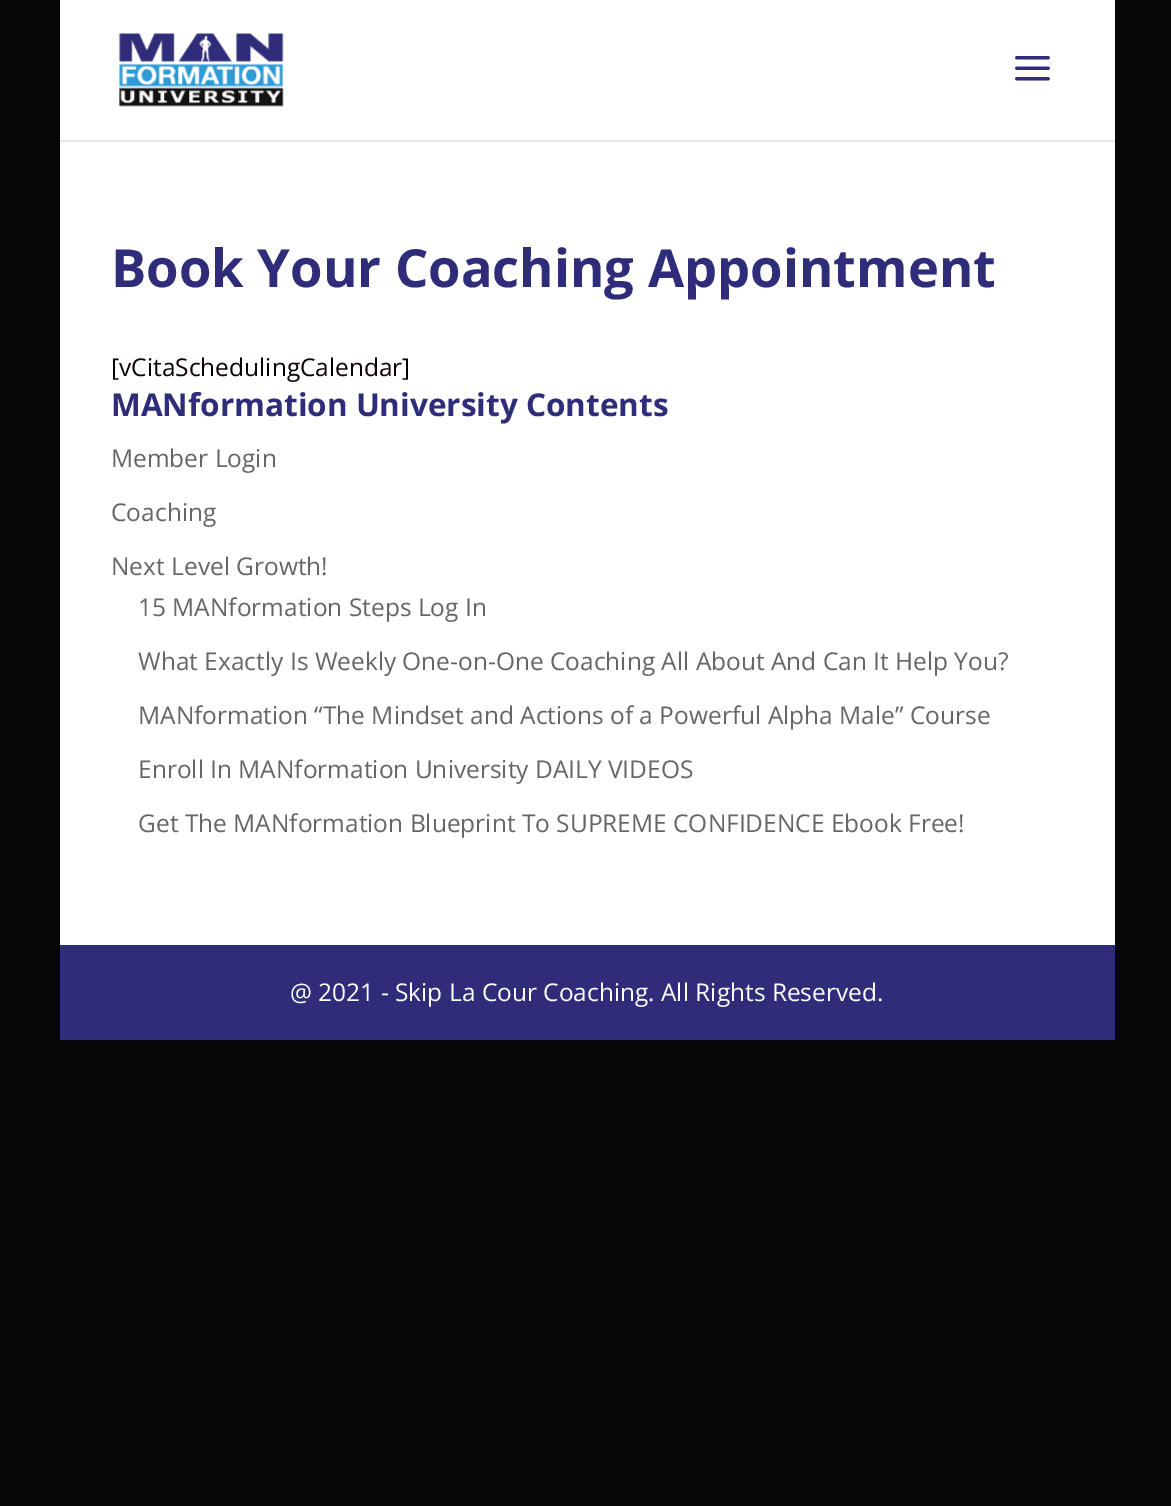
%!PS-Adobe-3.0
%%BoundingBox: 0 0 1171 1506
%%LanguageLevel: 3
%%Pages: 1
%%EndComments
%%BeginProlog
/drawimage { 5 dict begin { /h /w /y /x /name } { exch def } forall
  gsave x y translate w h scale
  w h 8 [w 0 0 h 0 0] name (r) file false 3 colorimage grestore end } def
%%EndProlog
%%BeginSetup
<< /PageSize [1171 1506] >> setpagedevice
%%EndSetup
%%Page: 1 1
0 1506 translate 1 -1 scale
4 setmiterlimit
0.024 setgray
0 0 1171 1506 rectfill
0.902 setgray
newpath 60 140 moveto 60 142 lineto 1115 142 lineto 1115 2 lineto 1115 140 lineto closepath fill
1 setgray
60 0 1055 140 rectfill
(images/1.raw) 119 33 165 74 drawimage
(images/2.raw) 1015 56 35 25 drawimage
60 142 1055 803 rectfill
0.184 0.173 0.475 setrgbcolor
60 945 1055 95 rectfill
/OpenSans-Bold [52.5 0 0 -52.5 0 0] selectfont
111 287 moveto (Book Your Coaching Appointment) show
/OpenSans-Regular [24.5 0 0 -24.5 0 0] selectfont
0.039 0 0 setrgbcolor
111 376 moveto ([vCitaSchedulingCalendar]) show
/OpenSans-Bold [31.5 0 0 -31.5 0 0] selectfont
0.184 0.173 0.475 setrgbcolor
111 416 moveto (MANformation University Contents) show
/OpenSans-Regular [24.5 0 0 -24.5 0 0] selectfont
0.4 setgray
111 467 moveto (Member Login) show
111 521 moveto (Coaching) show
111 575 moveto (Next Level Growth!) show
138 616 moveto (15 MANformation Steps Log In) show
138 670 moveto (What Exactly Is Weekly One-on-One Coaching All About And Can It Help You?) show
138 724 moveto (MANformation “The Mindset and Actions of a Powerful Alpha Male” Course) show
138 778 moveto (Enroll In MANformation University DAILY VIDEOS) show
138 832 moveto (Get The MANformation Blueprint To SUPREME CONFIDENCE Ebook Free!) show
1 setgray
290 1001 moveto (@ 2021 - Skip La Cour Coaching. All Rights Reserved.) show
showpage
%%EOF
